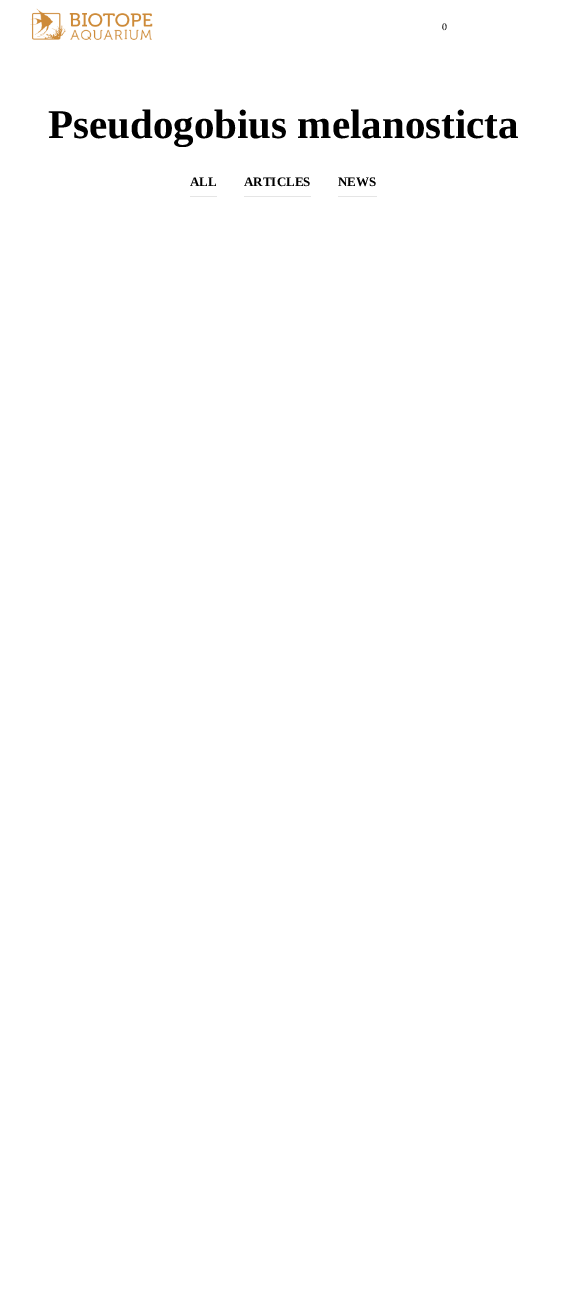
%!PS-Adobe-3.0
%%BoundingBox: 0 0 567 1292
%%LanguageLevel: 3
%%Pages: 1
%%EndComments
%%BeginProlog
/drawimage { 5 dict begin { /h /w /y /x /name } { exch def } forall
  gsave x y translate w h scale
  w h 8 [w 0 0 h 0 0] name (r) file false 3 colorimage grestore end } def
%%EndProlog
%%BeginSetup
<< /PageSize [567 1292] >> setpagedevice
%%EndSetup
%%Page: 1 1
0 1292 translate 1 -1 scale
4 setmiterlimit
1 setgray
0 0 567 1292 rectfill
(images/1.raw) 30 8 123 32 drawimage
0.898 setgray
190 196 27 1 rectfill
244 196 67 1 rectfill
338 196 39 1 rectfill
/LiberationSerif-Regular [10 0 0 -10 0 0] selectfont
0 setgray
442 30 moveto (0) show
/LiberationSerif-Bold [41 0 0 -41 0 0] selectfont
48 138 moveto (Pseudogobius melanosticta) show
/LiberationSerif-Bold [13 0 0 -13 0 0] selectfont
190 186 moveto (ALL) show
244 186 moveto (ARTICLES) show
338 186 moveto (NEWS) show
showpage
%%EOF
